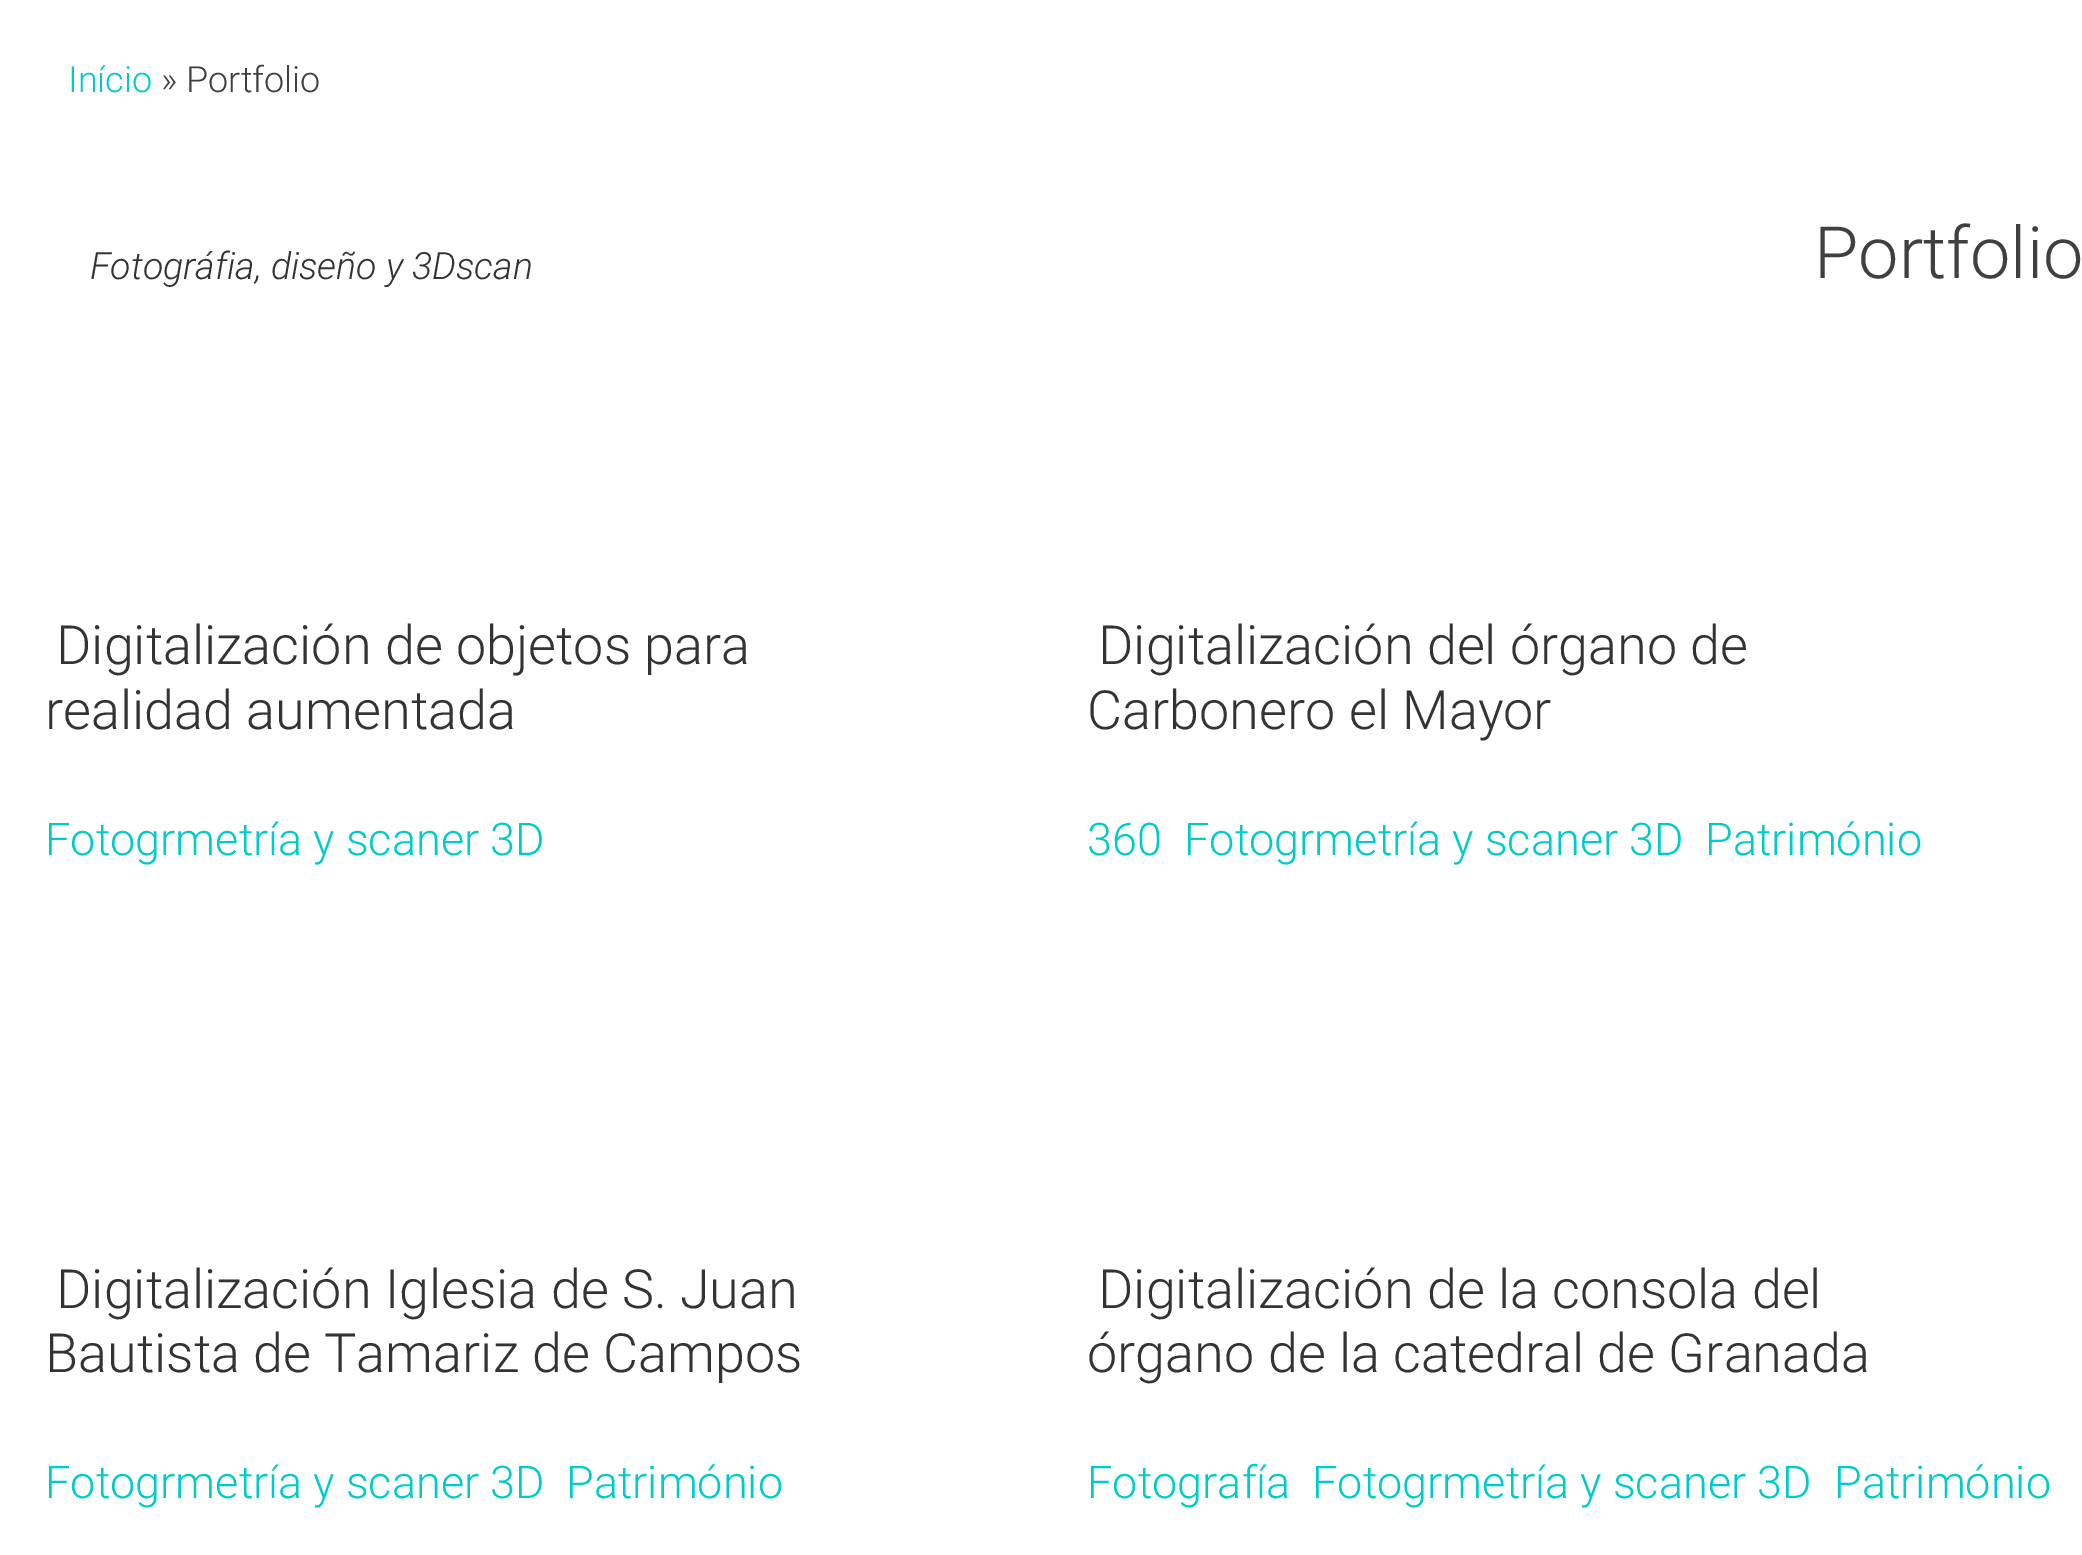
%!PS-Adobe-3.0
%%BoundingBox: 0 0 2082 1555
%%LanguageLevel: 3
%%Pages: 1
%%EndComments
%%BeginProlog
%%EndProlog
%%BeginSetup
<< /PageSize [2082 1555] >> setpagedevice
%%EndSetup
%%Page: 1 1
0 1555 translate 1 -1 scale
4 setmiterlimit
1 setgray
0 0 2082 1555 rectfill
/Roboto-Light [36 0 0 -36 0 0] selectfont
0 0.796 0.796 setrgbcolor
68 92 moveto (Início) show
0.251 setgray
161 92 moveto (» Portfolio) show
/Roboto-Light [72 0 0 -72 0 0] selectfont
1814 278 moveto (Portfolio) show
/Roboto-Light [54 0 0 -54 0 0] selectfont
0.2 setgray
56 664 moveto (Digitalización de objetos para) show
45 729 moveto (realidad aumentada) show
/Roboto-Light [45 0 0 -45 0 0] selectfont
0 0.796 0.796 setrgbcolor
45 855 moveto (Fotogrmetría y scaner 3D) show
/Roboto-Light [54 0 0 -54 0 0] selectfont
0.2 setgray
1098 664 moveto (Digitalización del órgano de) show
1087 729 moveto (Carbonero el Mayor) show
/Roboto-Light [45 0 0 -45 0 0] selectfont
0 0.796 0.796 setrgbcolor
1087 855 moveto (360) show
1184 855 moveto (Fotogrmetría y scaner 3D) show
1705 855 moveto (Património) show
/Roboto-Light [54 0 0 -54 0 0] selectfont
0.2 setgray
56 1308 moveto (Digitalización Iglesia de S. Juan) show
45 1372 moveto (Bautista de Tamariz de Campos) show
/Roboto-Light [45 0 0 -45 0 0] selectfont
0 0.796 0.796 setrgbcolor
45 1498 moveto (Fotogrmetría y scaner 3D) show
566 1498 moveto (Património) show
/Roboto-Light [54 0 0 -54 0 0] selectfont
0.2 setgray
1098 1308 moveto (Digitalización de la consola del) show
1087 1372 moveto (órgano de la catedral de Granada) show
/Roboto-Light [45 0 0 -45 0 0] selectfont
0 0.796 0.796 setrgbcolor
1087 1498 moveto (Fotografía) show
1312 1498 moveto (Fotogrmetría y scaner 3D) show
1834 1498 moveto (Património) show
/Roboto-LightItalic [37.5 0 0 -37.5 0 0] selectfont
0.2 setgray
90 279 moveto (Fotográfia, diseño y 3Dscan) show
showpage
%%EOF
